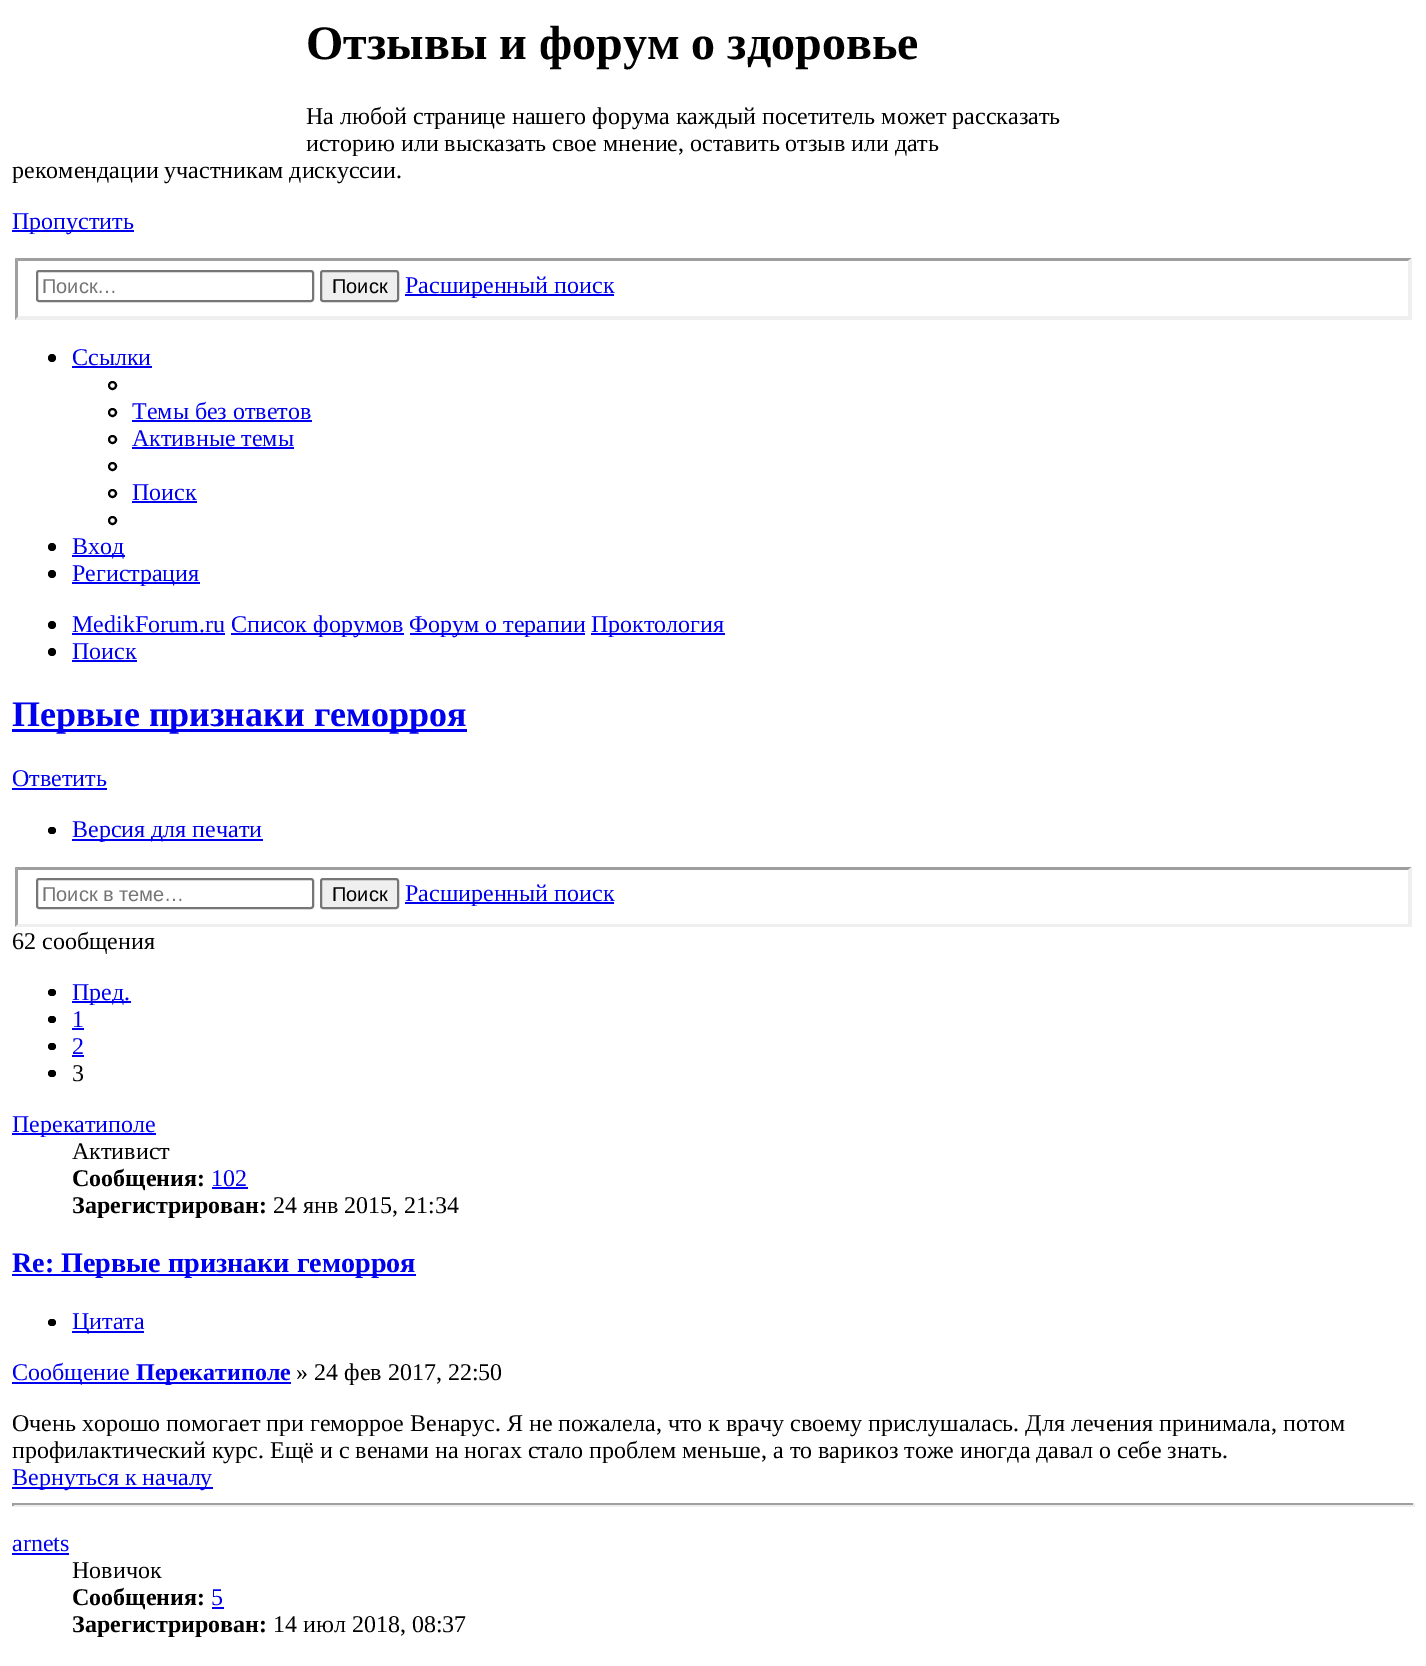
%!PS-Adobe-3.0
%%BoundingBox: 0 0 1426 1666
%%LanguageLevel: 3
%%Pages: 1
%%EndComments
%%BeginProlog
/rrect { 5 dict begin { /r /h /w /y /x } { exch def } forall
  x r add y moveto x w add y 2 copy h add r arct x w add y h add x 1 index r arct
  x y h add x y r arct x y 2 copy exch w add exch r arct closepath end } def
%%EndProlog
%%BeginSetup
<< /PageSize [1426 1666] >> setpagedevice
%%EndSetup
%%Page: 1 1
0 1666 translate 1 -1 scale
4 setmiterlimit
1 setgray
0 0 1426 1666 rectfill
0 0 0.933 setrgbcolor
12 230 122 2 rectfill
0.624 setgray
newpath 15 258 moveto 1412 258 lineto 1408 261 lineto 18 261 lineto closepath fill
0.937 setgray
newpath 1412 258 moveto 1412 320 lineto 1408 316 lineto 1408 261 lineto closepath fill
newpath 1412 320 moveto 15 320 lineto 18 316 lineto 1408 316 lineto closepath fill
0.624 setgray
newpath 15 320 moveto 15 258 lineto 18 261 lineto 18 316 lineto closepath fill
0.463 setgray
2 setlinewidth
37 271 276 30 2 rrect stroke
0.937 setgray
321 271 77 30 2 rrect gsave fill grestore
0.463 setgray
stroke
0 0 0.933 setrgbcolor
405 294 209 2 rectfill
0 setgray
newpath 52 358 4 0 360 arc closepath fill
0 0 0.933 setrgbcolor
72 366 80 2 rectfill
0 setgray
newpath 112.5 385.5 3.5 0 360 arc closepath stroke
newpath 112.5 412.5 3.5 0 360 arc closepath stroke
0 0 0.933 setrgbcolor
132 420 180 2 rectfill
0 setgray
newpath 112.5 439.5 3.5 0 360 arc closepath stroke
0 0 0.933 setrgbcolor
132 447 162 2 rectfill
0 setgray
newpath 112.5 466.5 3.5 0 360 arc closepath stroke
newpath 112.5 493.5 3.5 0 360 arc closepath stroke
0 0 0.933 setrgbcolor
132 501 65 2 rectfill
0 setgray
newpath 112.5 520.5 3.5 0 360 arc closepath stroke
newpath 52 547 4 0 360 arc closepath fill
0 0 0.933 setrgbcolor
72 555 53 2 rectfill
0 setgray
newpath 52 574 4 0 360 arc closepath fill
0 0 0.933 setrgbcolor
72 582 128 2 rectfill
0 setgray
newpath 52 625 4 0 360 arc closepath fill
0 0 0.933 setrgbcolor
72 633 153 2 rectfill
231 633 173 2 rectfill
410 633 175 2 rectfill
591 633 134 2 rectfill
0 setgray
newpath 52 652 4 0 360 arc closepath fill
0 0 0.933 setrgbcolor
72 660 65 2 rectfill
12 729 455 3 rectfill
12 788 95 2 rectfill
0 setgray
48 827 8 7 3.5 rrect fill
0 0 0.933 setrgbcolor
72 839 191 2 rectfill
0.624 setgray
newpath 15 867 moveto 1412 867 lineto 1408 870 lineto 18 870 lineto closepath fill
0.937 setgray
newpath 1412 867 moveto 1412 927 lineto 1408 924 lineto 1408 870 lineto closepath fill
newpath 1412 927 moveto 15 927 lineto 18 924 lineto 1408 924 lineto closepath fill
0.624 setgray
newpath 15 927 moveto 15 867 lineto 18 870 lineto 18 924 lineto closepath fill
0.463 setgray
37 879 276 29 2 rrect stroke
0.937 setgray
321 879 77 29 2 rrect gsave fill grestore
0.463 setgray
stroke
0 0 0.933 setrgbcolor
405 902 209 2 rectfill
0 setgray
48 989 8 7 3.5 rrect fill
0 0 0.933 setrgbcolor
72 1001 59 2 rectfill
0 setgray
48 1016 8 7 3.5 rrect fill
0 0 0.933 setrgbcolor
72 1028 12 2 rectfill
0 setgray
48 1043 8 7 3.5 rrect fill
0 0 0.933 setrgbcolor
72 1055 12 2 rectfill
0 setgray
48 1070 8 7 3.5 rrect fill
0 0 0.933 setrgbcolor
12 1133 144 2 rectfill
212 1187 36 2 rectfill
12 1274 404 2 rectfill
0 setgray
48 1319 8 7 3.5 rrect fill
0 0 0.933 setrgbcolor
72 1331 72 2 rectfill
12 1382 279 2 rectfill
12 1487 201 2 rectfill
0.624 setgray
12 1503 1403 2 rectfill
0.933 setgray
1413 1503 2 3 rectfill
12 1505 1403 2 rectfill
0.624 setgray
12 1503 2 3 rectfill
0 0 0.933 setrgbcolor
12 1553 57 2 rectfill
212 1607 12 2 rectfill
/LiberationSerif-Bold [48 0 0 -48 0 0] selectfont
0 setgray
306 59 moveto (Отзывы и форум о здоровье) show
/LiberationSerif-Regular [24 0 0 -24 0 0] selectfont
306 124 moveto (На любой странице нашего форума каждый посетитель может рассказать) show
306 151 moveto (историю или высказать свое мнение, оставить отзыв или дать) show
12 178 moveto (рекомендации участникам дискуссии.) show
0 0 0.933 setrgbcolor
12 229 moveto (Пропустить) show
/LiberationSans-Regular [20 0 0 -20 0 0] selectfont
0.459 setgray
42 293 moveto (Поиск…) show
0 setgray
332 293 moveto (Поиск) show
/LiberationSerif-Regular [24 0 0 -24 0 0] selectfont
0 0 0.933 setrgbcolor
405 293 moveto (Расширенный поиск) show
72 365 moveto (Ссылки) show
132 419 moveto (Темы без ответов) show
132 446 moveto (Активные темы) show
132 500 moveto (Поиск) show
72 554 moveto (Вход) show
72 581 moveto (Регистрация) show
72 632 moveto (MedikForum.ru) show
231 632 moveto (Список форумов) show
409 632 moveto (Форум о терапии) show
591 632 moveto (Проктология) show
72 659 moveto (Поиск) show
/LiberationSerif-Bold [36 0 0 -36 0 0] selectfont
12 726 moveto (Первые признаки геморроя) show
/LiberationSerif-Regular [24 0 0 -24 0 0] selectfont
12 786 moveto (Ответить) show
72 837 moveto (Версия для печати) show
/LiberationSans-Regular [20 0 0 -20 0 0] selectfont
0.459 setgray
42 901 moveto (Поиск в теме…) show
0 setgray
332 901 moveto (Поиск) show
/LiberationSerif-Regular [24 0 0 -24 0 0] selectfont
0 0 0.933 setrgbcolor
405 901 moveto (Расширенный поиск) show
0 setgray
12 949 moveto (62 сообщения) show
0 0 0.933 setrgbcolor
72 1000 moveto (Пред.) show
72 1027 moveto (1) show
72 1054 moveto (2) show
0 setgray
72 1081 moveto (3) show
0 0 0.933 setrgbcolor
12 1132 moveto (Перекатиполе) show
0 setgray
72 1159 moveto (Активист) show
/LiberationSerif-Bold [24 0 0 -24 0 0] selectfont
72 1186 moveto (Сообщения:) show
/LiberationSerif-Regular [24 0 0 -24 0 0] selectfont
0 0 0.933 setrgbcolor
211 1186 moveto (102) show
/LiberationSerif-Bold [24 0 0 -24 0 0] selectfont
0 setgray
72 1213 moveto (Зарегистрирован:) show
/LiberationSerif-Regular [24 0 0 -24 0 0] selectfont
273 1213 moveto (24 янв 2015, 21:34) show
/LiberationSerif-Bold [28.1 0 0 -28.1 0 0] selectfont
0 0 0.933 setrgbcolor
12 1272 moveto (Re: Первые признаки геморроя) show
/LiberationSerif-Regular [24 0 0 -24 0 0] selectfont
72 1329 moveto (Цитата) show
12 1380 moveto (Сообщение) show
/LiberationSerif-Bold [24 0 0 -24 0 0] selectfont
136 1380 moveto (Перекатиполе) show
/LiberationSerif-Regular [24 0 0 -24 0 0] selectfont
0 setgray
296 1380 moveto (» 24 фев 2017, 22:50) show
12 1431 moveto (Очень хорошо помогает при геморрое Венарус. Я не пожалела, что к врачу своему прислушалась. Для лечения принимала, потом) show
12 1458 moveto (профилактический курс. Ещё и с венами на ногах стало проблем меньше, а то варикоз тоже иногда давал о себе знать.) show
0 0 0.933 setrgbcolor
12 1485 moveto (Вернуться к началу) show
12 1551 moveto (arnets) show
0 setgray
72 1578 moveto (Новичок) show
/LiberationSerif-Bold [24 0 0 -24 0 0] selectfont
72 1605 moveto (Сообщения:) show
/LiberationSerif-Regular [24 0 0 -24 0 0] selectfont
0 0 0.933 setrgbcolor
211 1605 moveto (5) show
/LiberationSerif-Bold [24 0 0 -24 0 0] selectfont
0 setgray
72 1632 moveto (Зарегистрирован:) show
/LiberationSerif-Regular [24 0 0 -24 0 0] selectfont
273 1632 moveto (14 июл 2018, 08:37) show
showpage
%%EOF
